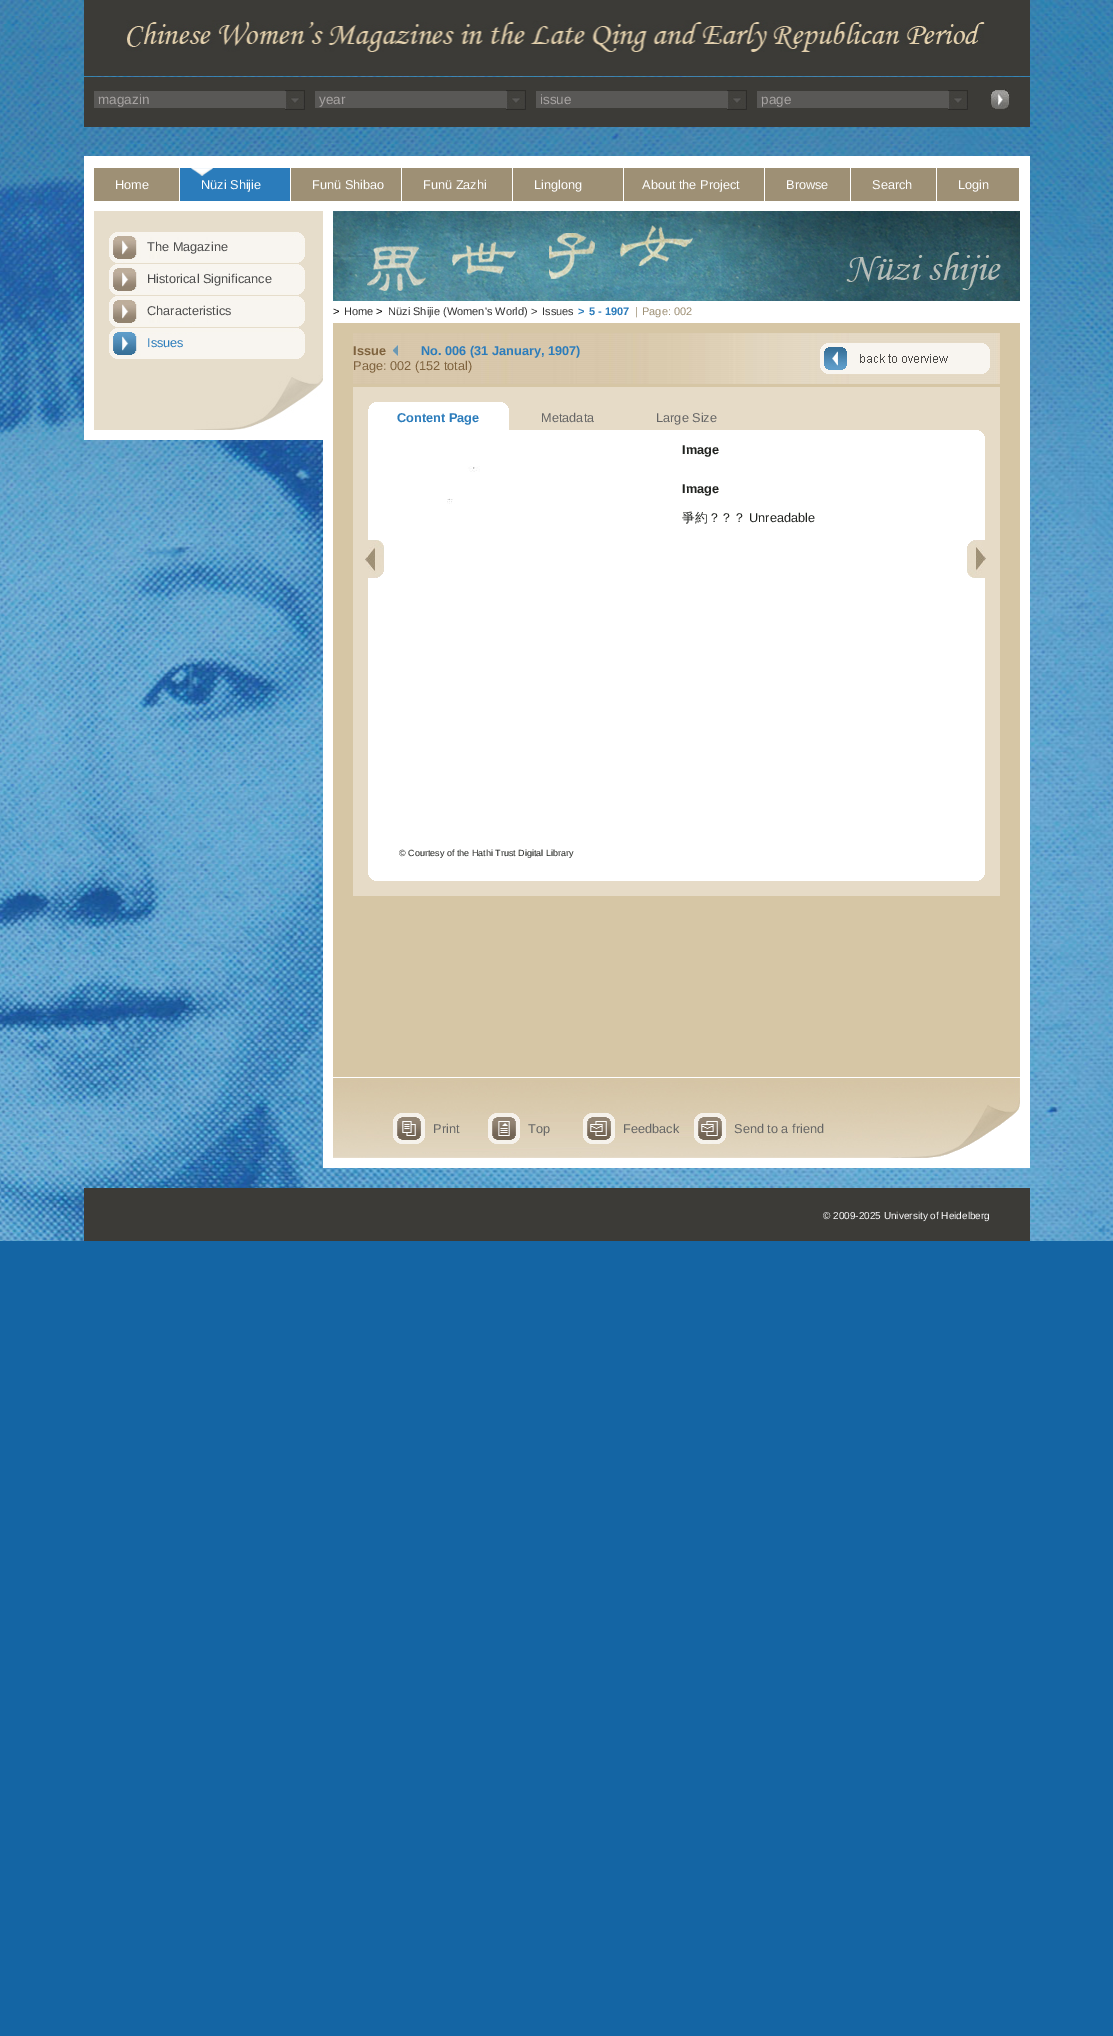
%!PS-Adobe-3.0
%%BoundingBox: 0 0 1113 2036
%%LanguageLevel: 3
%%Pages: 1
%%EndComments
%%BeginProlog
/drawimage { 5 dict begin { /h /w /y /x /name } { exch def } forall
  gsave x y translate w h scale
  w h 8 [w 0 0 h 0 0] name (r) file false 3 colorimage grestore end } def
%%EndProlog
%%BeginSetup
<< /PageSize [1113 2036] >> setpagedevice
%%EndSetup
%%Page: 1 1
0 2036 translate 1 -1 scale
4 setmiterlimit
0.078 0.396 0.643 setrgbcolor
0 0 1113 2036 rectfill
(images/1.raw) 0 0 1113 1241 drawimage
0.235 0.231 0.216 setrgbcolor
84 0 946 76 rectfill
(images/2.raw) 126 20 860 32 drawimage
84 77 946 50 rectfill
0.349 0.345 0.337 setrgbcolor
94 91 191 17 rectfill
(images/3.raw) 285 90 20 20 drawimage
315 91 191 17 rectfill
(images/3.raw) 506 90 20 20 drawimage
536 91 191 17 rectfill
(images/3.raw) 727 90 20 20 drawimage
757 91 191 17 rectfill
(images/3.raw) 948 90 20 20 drawimage
(images/4.raw) 990 89 20 21 drawimage
1 setgray
84 156 946 55 rectfill
0.62 0.565 0.459 setrgbcolor
94 168 85 33 rectfill
0.169 0.486 0.733 setrgbcolor
180 168 110 33 rectfill
(images/5.raw) 191 168 22 8 drawimage
0.62 0.565 0.459 setrgbcolor
291 168 110 33 rectfill
402 168 110 33 rectfill
513 168 110 33 rectfill
624 168 140 33 rectfill
765 168 85 33 rectfill
851 168 85 33 rectfill
937 168 82 33 rectfill
0.902 0.867 0.796 setrgbcolor
94 211 229 219 rectfill
1 setgray
94 430 229 10 rectfill
84 211 10 229 rectfill
(images/6.raw) 109 232 196 31 drawimage
(images/6.raw) 109 264 196 31 drawimage
(images/6.raw) 109 296 196 31 drawimage
(images/7.raw) 109 328 196 31 drawimage
(images/8.raw) 194 375 129 55 drawimage
1020 211 10 90 rectfill
323 211 10 90 rectfill
(images/9.raw) 333 211 687 90 drawimage
323 301 707 22 rectfill
1020 323 10 835 rectfill
333 1158 697 10 rectfill
323 323 10 845 rectfill
0.839 0.776 0.647 setrgbcolor
333 323 687 754 rectfill
(images/10.raw) 353 333 647 51 drawimage
(images/11.raw) 393 345 5 11 drawimage
(images/12.raw) 820 343 170 31 drawimage
1 setgray
333 1077 687 1 rectfill
0.902 0.859 0.78 setrgbcolor
353 387 647 509 rectfill
(images/13.raw) 368 402 141 28 drawimage
(images/14.raw) 368 430 617 10 drawimage
1 setgray
368 440 617 431 rectfill
(images/15.raw) 365 540 19 38 drawimage
(images/16.raw) 447 466 33 38 drawimage
(images/17.raw) 967 540 19 38 drawimage
(images/18.raw) 368 871 617 10 drawimage
933 1107 87 51 rectfill
(images/19.raw) 333 1078 687 80 drawimage
(images/20.raw) 393 1113 32 31 drawimage
(images/21.raw) 488 1113 32 31 drawimage
(images/22.raw) 583 1113 32 31 drawimage
(images/23.raw) 694 1113 32 31 drawimage
0.235 0.231 0.216 setrgbcolor
84 1188 946 53 rectfill
/LiberationSans-Regular [13.5 0 0 -13.5 0 0] selectfont
0.655 0.639 0.635 setrgbcolor
98 104 moveto (magazin) show
319 104 moveto (year) show
540 104 moveto (issue) show
761 104 moveto (page) show
/LiberationSans-Regular [12.75 0 0 -12.75 0 0] selectfont
1 setgray
115 189 moveto (Home) show
201 189 moveto (Nüzi Shijie) show
312 189 moveto (Funü Shibao) show
423 189 moveto (Funü Zazhi) show
534 189 moveto (Linglong) show
642 189 moveto (About the Project) show
786 189 moveto (Browse) show
872 189 moveto (Search) show
958 189 moveto (Login) show
0.298 setgray
147 251 moveto (The Magazine) show
147 283 moveto (Historical Significance) show
147 315 moveto (Characteristics) show
0.169 0.486 0.733 setrgbcolor
147 347 moveto (Issues) show
/LiberationSans-Regular [11 0 0 -11 0 0] selectfont
0 setgray
333 315 moveto (>) show
0.2 setgray
344 315 moveto (Home) show
0 setgray
376 315 moveto (>) show
0.2 setgray
388 315 moveto (Nüzi Shijie \(Women's World\) >) show
542 315 moveto (Issues) show
/LiberationSans-Bold [11 0 0 -11 0 0] selectfont
0.169 0.486 0.733 setrgbcolor
578 315 moveto (>) show
589 315 moveto (5 - 1907) show
/LiberationSans-Regular [11 0 0 -11 0 0] selectfont
0.62 0.565 0.459 setrgbcolor
635 315 moveto (|) show
642 315 moveto (Page: 002) show
/LiberationSans-Bold [12.75 0 0 -12.75 0 0] selectfont
0.494 0.384 0.239 setrgbcolor
353 355 moveto (Issue) show
0.169 0.486 0.733 setrgbcolor
421 355 moveto (No. 006 \(31 January, 1907\)) show
/LiberationSans-Regular [12.75 0 0 -12.75 0 0] selectfont
0.494 0.384 0.239 setrgbcolor
353 370 moveto (Page: 002 \(152 total\)) show
/LiberationSans-Bold [12.75 0 0 -12.75 0 0] selectfont
0.169 0.486 0.733 setrgbcolor
397 422 moveto (Content Page) show
/LiberationSans-Regular [12.75 0 0 -12.75 0 0] selectfont
0.4 setgray
541 422 moveto (Metadata) show
656 422 moveto (Large Size) show
/LiberationSans-Bold [12.75 0 0 -12.75 0 0] selectfont
0.129 0.137 0.125 setrgbcolor
682 454 moveto (Image) show
682 493 moveto (Image) show
/WenQuanYiZenHei-Medium [12.75 0 0 -12.75 0 0] selectfont
682 522 moveto (爭約？？？) show
/LiberationSans-Regular [12.75 0 0 -12.75 0 0] selectfont
749 522 moveto (Unreadable) show
/LiberationSans-Regular [9 0 0 -9 0 0] selectfont
399 856 moveto (© Courtesy of the Hathi Trust Digital Library) show
/LiberationSans-Regular [12.75 0 0 -12.75 0 0] selectfont
0.4 setgray
433 1133 moveto (Print) show
528 1133 moveto (Top) show
623 1133 moveto (Feedback) show
734 1133 moveto (Send to a friend) show
/LiberationSans-Regular [10 0 0 -10 0 0] selectfont
1 setgray
823 1219 moveto (© 2009-2025 University of Heidelberg) show
showpage
%%EOF
